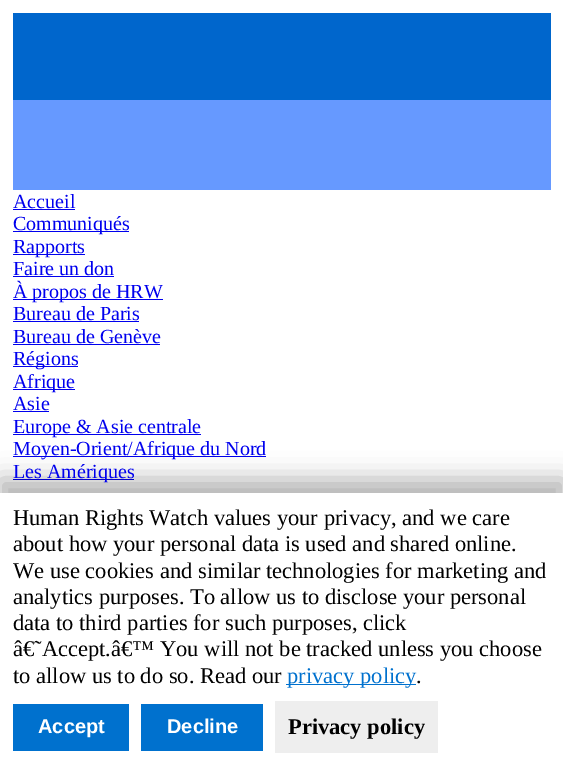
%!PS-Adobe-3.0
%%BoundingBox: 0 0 563 764
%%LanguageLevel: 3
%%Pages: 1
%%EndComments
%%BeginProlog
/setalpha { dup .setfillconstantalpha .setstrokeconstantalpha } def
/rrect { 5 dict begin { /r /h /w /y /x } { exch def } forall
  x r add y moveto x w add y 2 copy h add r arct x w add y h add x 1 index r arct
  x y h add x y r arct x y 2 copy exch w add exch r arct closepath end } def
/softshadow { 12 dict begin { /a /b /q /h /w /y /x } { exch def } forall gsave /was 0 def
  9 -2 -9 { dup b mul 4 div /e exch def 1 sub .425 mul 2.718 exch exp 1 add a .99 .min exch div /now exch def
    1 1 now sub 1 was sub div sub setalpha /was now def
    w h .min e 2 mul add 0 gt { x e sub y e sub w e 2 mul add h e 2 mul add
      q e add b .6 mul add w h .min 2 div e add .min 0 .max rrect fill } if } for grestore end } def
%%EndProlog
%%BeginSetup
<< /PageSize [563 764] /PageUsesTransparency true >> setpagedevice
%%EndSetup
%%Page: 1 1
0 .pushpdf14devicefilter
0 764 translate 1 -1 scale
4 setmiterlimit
1 setgray
0 0 563 764 rectfill
0 0.4 0.8 setrgbcolor
13 13 538 87 rectfill
0.4 0.6 1 setrgbcolor
13 100 538 90 rectfill
0 0 0.933 setrgbcolor
13 209 62 1 rectfill
13 231 116 1 rectfill
13 254 72 1 rectfill
13 276 101 1 rectfill
13 299 150 1 rectfill
13 321 126 1 rectfill
13 344 147 1 rectfill
13 366 65 1 rectfill
13 389 62 1 rectfill
13 411 36 1 rectfill
13 434 188 1 rectfill
13 456 253 1 rectfill
13 479 121 1 rectfill
0 setgray
-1 479 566 275 0 12.5 0.3 softshadow
1 setgray
0 493 563 271 rectfill
0 0.443 0.808 setrgbcolor
286 684 130 1 rectfill
13 704 116 47 rectfill
141 704 122 47 rectfill
0.933 setgray
275 701 163 52 rectfill
/LiberationSerif-Regular [20 0 0 -20 0 0] selectfont
0 0 0.933 setrgbcolor
13 208 moveto (Accueil) show
13 230 moveto (Communiqués) show
13 253 moveto (Rapports) show
13 275 moveto (Faire un don) show
13 298 moveto (À propos de HRW) show
13 320 moveto (Bureau de Paris) show
13 343 moveto (Bureau de Genève) show
13 365 moveto (Régions) show
13 388 moveto (Afrique) show
13 410 moveto (Asie) show
13 433 moveto (Europe & Asie centrale) show
13 455 moveto (Moyen-Orient/Afrique du Nord) show
13 478 moveto (Les Amériques) show
/LiberationSerif-Regular [22.5 0 0 -22.5 0 0] selectfont
0 setgray
13 525 moveto (Human Rights Watch values your privacy, and we care) show
13 551 moveto (about how your personal data is used and shared online.) show
13 578 moveto (We use cookies and similar technologies for marketing and) show
13 604 moveto (analytics purposes. To allow us to disclose your personal) show
13 630 moveto (data to third parties for such purposes, click) show
13 656 moveto (â€˜Accept.â€™ You will not be tracked unless you choose) show
13 683 moveto (to allow us to do so. Read our) show
0 0.443 0.808 setrgbcolor
287 683 moveto (privacy policy) show
0 setgray
416 683 moveto (.) show
/LiberationSans-Bold [20 0 0 -20 0 0] selectfont
1 setgray
38 733 moveto (Accept) show
167 733 moveto (Decline) show
/LiberationSerif-Bold [22.5 0 0 -22.5 0 0] selectfont
0 setgray
288 734 moveto (Privacy policy) show
.poppdf14devicefilter showpage
%%EOF
